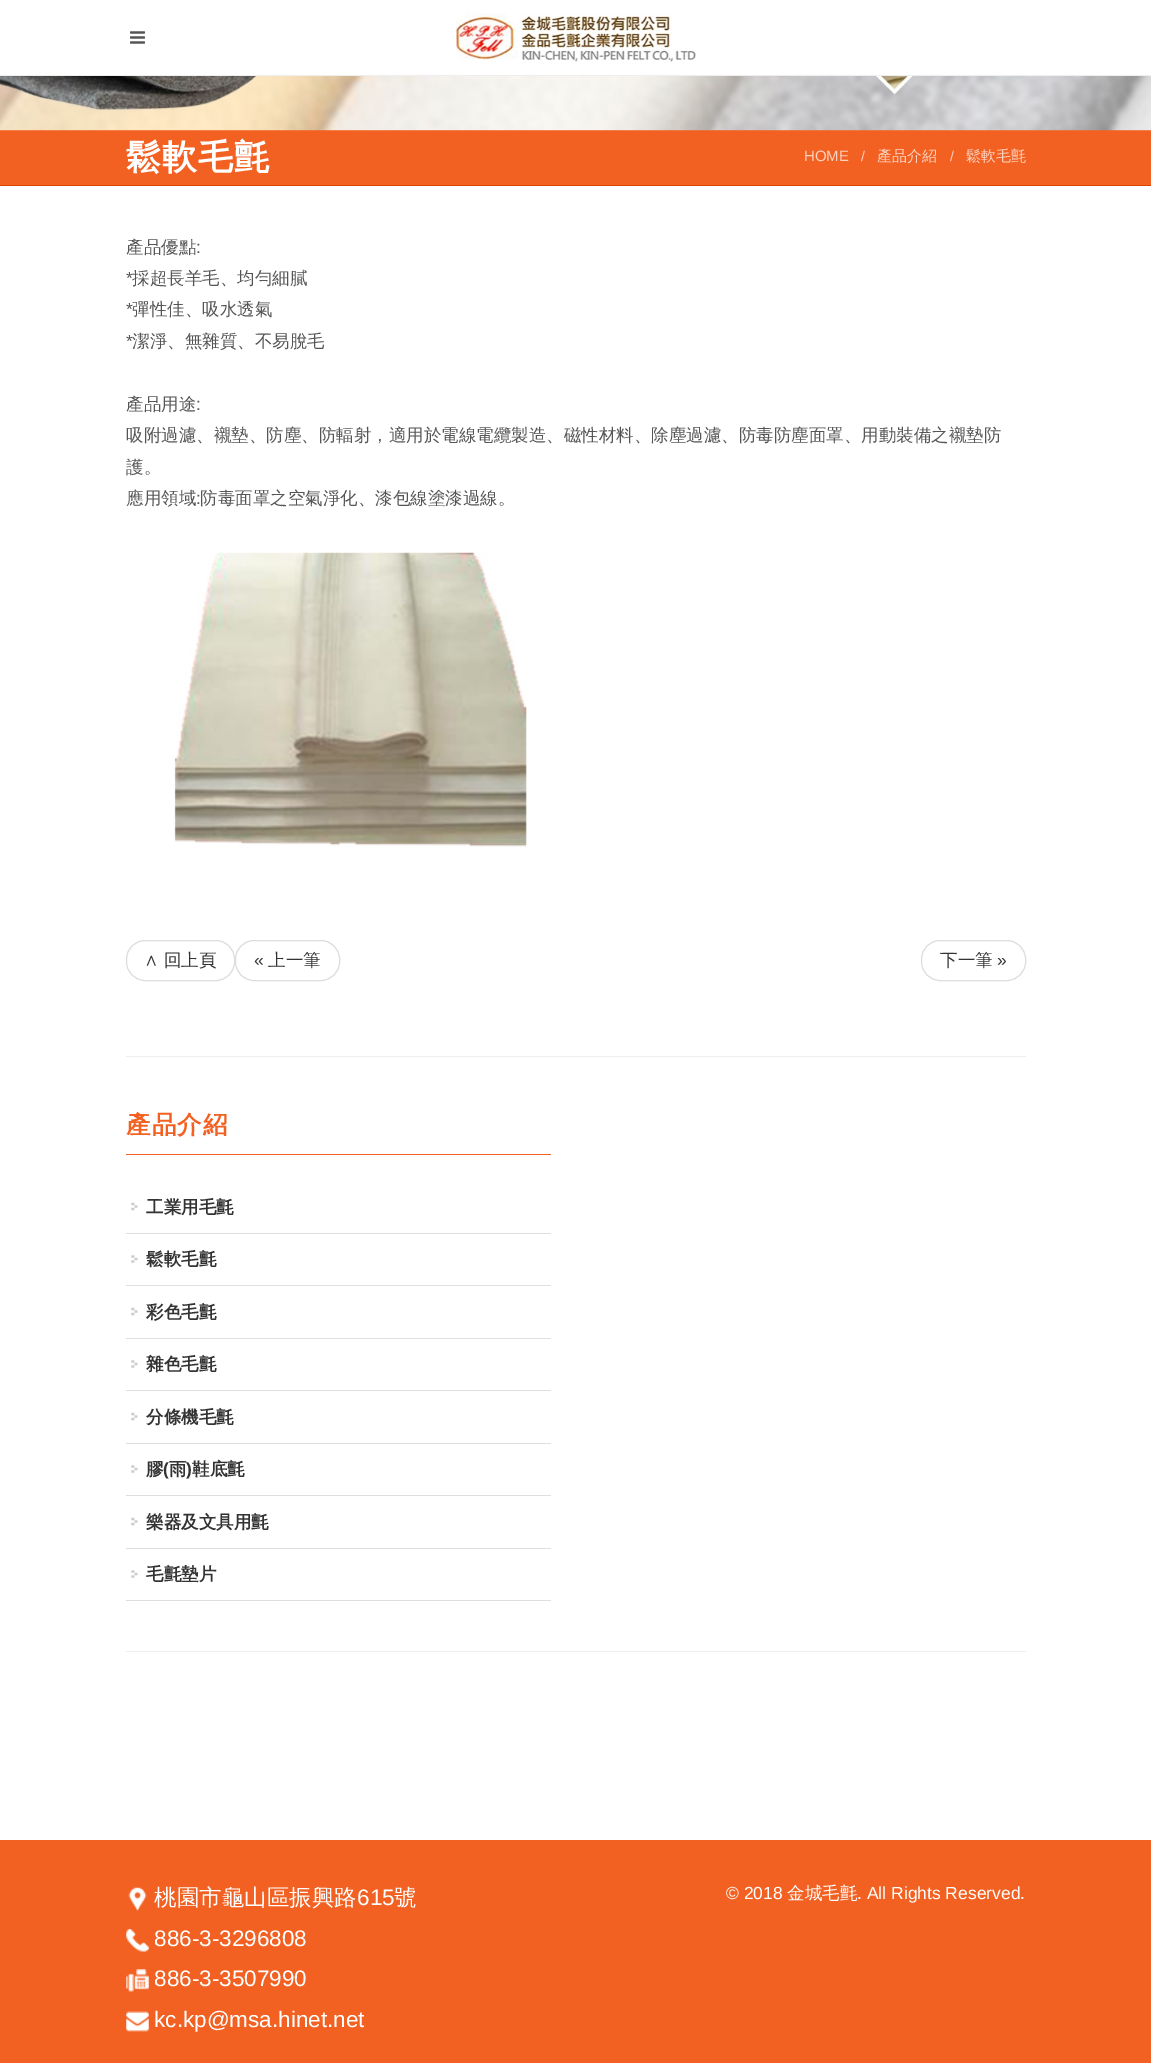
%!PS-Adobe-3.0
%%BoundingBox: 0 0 1151 2063
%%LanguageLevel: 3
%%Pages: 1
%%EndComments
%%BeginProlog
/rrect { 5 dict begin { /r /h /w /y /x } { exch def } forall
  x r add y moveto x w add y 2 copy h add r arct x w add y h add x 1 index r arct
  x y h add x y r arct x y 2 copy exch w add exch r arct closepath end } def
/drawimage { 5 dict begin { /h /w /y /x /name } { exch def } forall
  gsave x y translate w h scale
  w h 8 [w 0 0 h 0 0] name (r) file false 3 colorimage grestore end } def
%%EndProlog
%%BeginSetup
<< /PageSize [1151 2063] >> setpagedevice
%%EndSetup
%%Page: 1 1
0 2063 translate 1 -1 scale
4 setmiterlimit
1 setgray
0 0 1151 2063 rectfill
0.933 setgray
0 75 1151 1 rectfill
(images/1.raw) 130 31 15 13 drawimage
(images/2.raw) 456 13 240 49 drawimage
0.949 0.38 0.133 setrgbcolor
0 130 1151 55 rectfill
(images/3.raw) 0 76 1151 55 drawimage
0.863 0.263 0 setrgbcolor
0 185 1151 1 rectfill
0.933 setgray
126 1056 900 1 rectfill
(images/4.raw) 174 552 353 295 drawimage
0.867 setgray
126.5 940.5 108 40 18.5 rrect stroke
235.5 940.5 104 40 18.5 rrect stroke
921.5 940.5 104 40 18.5 rrect stroke
0.933 setgray
126 1651 900 1 rectfill
0.949 0.38 0.133 setrgbcolor
126 1154 425 1 rectfill
0.875 setgray
126 1233 425 1 rectfill
(images/5.raw) 131 1202 7 9 drawimage
126 1285 425 1 rectfill
(images/6.raw) 131 1255 7 8 drawimage
126 1338 425 1 rectfill
(images/5.raw) 131 1307 7 9 drawimage
126 1390 425 1 rectfill
(images/6.raw) 131 1360 7 8 drawimage
126 1443 425 1 rectfill
(images/5.raw) 131 1412 7 9 drawimage
126 1495 425 1 rectfill
(images/6.raw) 131 1465 7 8 drawimage
126 1548 425 1 rectfill
(images/5.raw) 131 1517 7 9 drawimage
126 1600 425 1 rectfill
(images/6.raw) 131 1570 7 8 drawimage
0.949 0.38 0.133 setrgbcolor
0 1840 1151 223 rectfill
(images/7.raw) 128 1887 19 24 drawimage
(images/8.raw) 126 1929 23 23 drawimage
(images/9.raw) 126 1969 23 23 drawimage
(images/10.raw) 126 2011 23 21 drawimage
/WenQuanYiZenHei-Bold [35 0 0 -35 0 0] selectfont
1 setgray
126 169 moveto 1 0 (鬆軟毛氈) ashow
/LiberationSans-Regular [15 0 0 -15 0 0] selectfont
1 0.827 0.753 setrgbcolor
804 161 moveto (HOME) show
/LiberationSans-Regular [14 0 0 -14 0 0] selectfont
861 161 moveto (/) show
/WenQuanYiZenHei-Medium [15 0 0 -15 0 0] selectfont
877 161 moveto (產品介紹) show
/LiberationSans-Regular [14 0 0 -14 0 0] selectfont
950 161 moveto (/) show
/WenQuanYiZenHei-Medium [15 0 0 -15 0 0] selectfont
966 161 moveto (鬆軟毛氈) show
/WenQuanYiZenHei-Medium [17.5 0 0 -17.5 0 0] selectfont
0.333 setgray
126 253 moveto (產品優點) show
/LiberationSans-Regular [17.5 0 0 -17.5 0 0] selectfont
196 253 moveto (:) show
126 284 moveto (*) show
/WenQuanYiZenHei-Medium [17.5 0 0 -17.5 0 0] selectfont
132 284 moveto (採超長羊毛、均勻細膩) show
/LiberationSans-Regular [17.5 0 0 -17.5 0 0] selectfont
126 315 moveto (*) show
/WenQuanYiZenHei-Medium [17.5 0 0 -17.5 0 0] selectfont
132 315 moveto (彈性佳、吸水透氣) show
/LiberationSans-Regular [17.5 0 0 -17.5 0 0] selectfont
126 347 moveto (*) show
/WenQuanYiZenHei-Medium [17.5 0 0 -17.5 0 0] selectfont
132 347 moveto (潔淨、無雜質、不易脫毛) show
126 410 moveto (產品用途) show
/LiberationSans-Regular [17.5 0 0 -17.5 0 0] selectfont
196 410 moveto (:) show
/WenQuanYiZenHei-Medium [17.5 0 0 -17.5 0 0] selectfont
126 441 moveto (吸附過濾、襯墊、防塵、防輻射，適用於電線電纜製造、磁性材料、除塵過濾、防毒防塵面罩、用動裝備之襯墊防) show
126 473 moveto (護。) show
126 504 moveto (應用領域) show
/LiberationSans-Regular [17.5 0 0 -17.5 0 0] selectfont
196 504 moveto (:) show
/WenQuanYiZenHei-Medium [17.5 0 0 -17.5 0 0] selectfont
200 504 moveto (防毒面罩之空氣淨化、漆包線塗漆過線。) show
0.2 setgray
144 966 moveto (∧ 回上頁) show
/LiberationSans-Regular [17.5 0 0 -17.5 0 0] selectfont
254 966 moveto («) show
/WenQuanYiZenHei-Medium [17.5 0 0 -17.5 0 0] selectfont
268 966 moveto (上一筆) show
940 966 moveto (下一筆) show
/LiberationSans-Regular [17.5 0 0 -17.5 0 0] selectfont
997 966 moveto (») show
/WenQuanYiZenHei-Bold [24.5 0 0 -24.5 0 0] selectfont
0.949 0.38 0.133 setrgbcolor
126 1133 moveto 1 0 (產品介紹) ashow
/WenQuanYiZenHei-Bold [17.5 0 0 -17.5 0 0] selectfont
0.2 setgray
146 1213 moveto (工業用毛氈) show
146 1265 moveto (鬆軟毛氈) show
146 1318 moveto (彩色毛氈) show
146 1370 moveto (雜色毛氈) show
146 1423 moveto (分條機毛氈) show
146 1475 moveto (膠) show
/LiberationSans-Bold [17.5 0 0 -17.5 0 0] selectfont
163 1475 moveto (\() show
/WenQuanYiZenHei-Bold [17.5 0 0 -17.5 0 0] selectfont
169 1475 moveto (雨) show
/LiberationSans-Bold [17.5 0 0 -17.5 0 0] selectfont
186 1475 moveto (\)) show
/WenQuanYiZenHei-Bold [17.5 0 0 -17.5 0 0] selectfont
192 1475 moveto (鞋底氈) show
146 1528 moveto (樂器及文具用氈) show
146 1580 moveto (毛氈墊片) show
/WenQuanYiZenHei-Medium [22.5 0 0 -22.5 0 0] selectfont
1 setgray
154 1905 moveto (桃園市龜山區振興路) show
/LiberationSans-Regular [22.5 0 0 -22.5 0 0] selectfont
357 1905 moveto (615) show
/WenQuanYiZenHei-Medium [22.5 0 0 -22.5 0 0] selectfont
394 1905 moveto (號) show
/LiberationSans-Regular [22.5 0 0 -22.5 0 0] selectfont
154 1946 moveto (886-3-3296808) show
154 1986 moveto (886-3-3507990) show
154 2027 moveto (kc.kp@msa.hinet.net) show
/LiberationSans-Regular [17.5 0 0 -17.5 0 0] selectfont
726 1899 moveto (© 2018) show
/WenQuanYiZenHei-Medium [17.5 0 0 -17.5 0 0] selectfont
787 1899 moveto (金城毛氈) show
/LiberationSans-Regular [17.5 0 0 -17.5 0 0] selectfont
857 1899 moveto (. All Rights Reserved.) show
showpage
%%EOF
